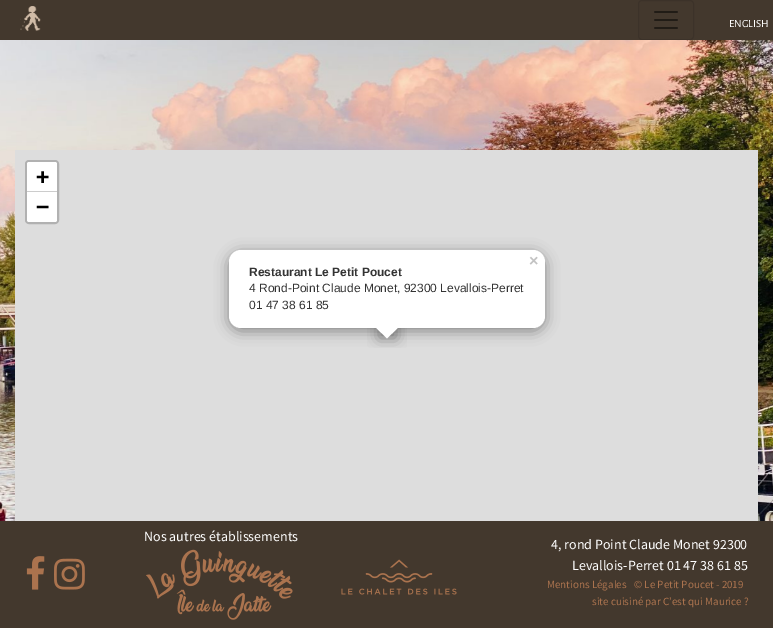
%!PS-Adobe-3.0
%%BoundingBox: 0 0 773 628
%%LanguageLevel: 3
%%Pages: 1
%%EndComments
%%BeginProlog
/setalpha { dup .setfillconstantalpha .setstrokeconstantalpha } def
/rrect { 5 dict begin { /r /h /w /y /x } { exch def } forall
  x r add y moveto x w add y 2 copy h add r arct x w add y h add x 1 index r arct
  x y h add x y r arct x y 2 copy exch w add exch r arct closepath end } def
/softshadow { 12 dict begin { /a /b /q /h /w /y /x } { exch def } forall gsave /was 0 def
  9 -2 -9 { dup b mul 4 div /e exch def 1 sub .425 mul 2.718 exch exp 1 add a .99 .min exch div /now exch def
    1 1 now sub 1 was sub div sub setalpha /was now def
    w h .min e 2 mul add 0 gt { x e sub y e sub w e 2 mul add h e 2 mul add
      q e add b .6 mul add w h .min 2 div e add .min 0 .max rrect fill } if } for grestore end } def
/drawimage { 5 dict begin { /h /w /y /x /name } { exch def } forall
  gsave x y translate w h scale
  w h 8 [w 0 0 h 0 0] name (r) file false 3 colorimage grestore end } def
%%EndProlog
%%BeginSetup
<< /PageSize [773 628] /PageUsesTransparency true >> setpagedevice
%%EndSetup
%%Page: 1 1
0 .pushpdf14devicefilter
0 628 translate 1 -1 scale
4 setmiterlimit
1 setgray
0 0 773 628 rectfill
0.263 0.22 0.176 setrgbcolor
0 0 773 40 rectfill
(images/1.raw) 20 6 21 25 drawimage
0.235 0.196 0.161 setrgbcolor
638.5 0.5 55 39 3.5 rrect stroke
(images/2.raw) 654 11 24 18 drawimage
(images/3.raw) 0 40 773 481 drawimage
0.867 setgray
15 150 743 371 rectfill
0.694 setgray
2 setlinewidth
26 161 32 62 3 rrect stroke
1 setgray
newpath 29 162 moveto 55 162 lineto 56 162 57 163 57 164 curveto 57 192 lineto 27 192 lineto 27 164 lineto 27 163 28 162 29 162 curveto closepath fill
0.8 setgray
27 191 30 1 rectfill
1 setgray
newpath 27 192 moveto 57 192 lineto 57 220 lineto 57 221 56 222 55 222 curveto 29 222 lineto 28 222 27 221 27 220 curveto closepath fill
0 setgray
229 253 316 78 12 7 0.4 softshadow
1 setgray
229 250 316 78 12 rrect fill
gsave
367 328 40 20 rectclip
0 setgray
379 321 17 17 0 7 0.4 softshadow
grestore
gsave
367 328 40 20 rectclip
newpath 387 314.5 moveto 399 326.5 lineto 387 338.5 lineto 375 326.5 lineto closepath fill
grestore
0.263 0.22 0.176 setrgbcolor
0 521 773 107 rectfill
(images/4.raw) 146 549 147 71 drawimage
(images/5.raw) 341 559 116 36 drawimage
(images/6.raw) 26 556 19 34 drawimage
(images/7.raw) 54 558 31 32 drawimage
/AlegreyaSansSC-Regular [11 0 0 -11 0 0] selectfont
1 setgray
729 27 moveto (ENGLISH) show
/DejaVuSansMono-Bold [22 0 0 -22 0 0] selectfont
0 setgray
36 184 moveto (+) show
36 214 moveto (−) show
/LiberationSans-Bold [16 0 0 -16 0 0] selectfont
0.765 setgray
529 266 moveto (×) show
/LiberationSans-Bold [12 0 0 -12 0 0] selectfont
0.2 setgray
249 276 moveto (Restaurant Le Petit Poucet) show
/LiberationSans-Regular [12 0 0 -12 0 0] selectfont
249 292 moveto (4 Rond-Point Claude Monet, 92300 Levallois-Perret) show
249 309 moveto (01 47 38 61 85) show
/SourceSansPro-Regular [14 0 0 -14 0 0] selectfont
1 setgray
144 541 moveto (Nos autres établissements) show
551 549 moveto (4, rond Point Claude Monet 92300) show
572 570 moveto (Levallois-Perret 01 47 38 61 85) show
/SourceSansPro-Regular [11 0 0 -11 0 0] selectfont
0.671 0.451 0.306 setrgbcolor
547 588 moveto (Mentions Légales) show
634 588 moveto (© Le Petit Poucet - 2019) show
592 605 moveto (site cuisiné par C’est qui Maurice ?) show
.poppdf14devicefilter showpage
%%EOF
